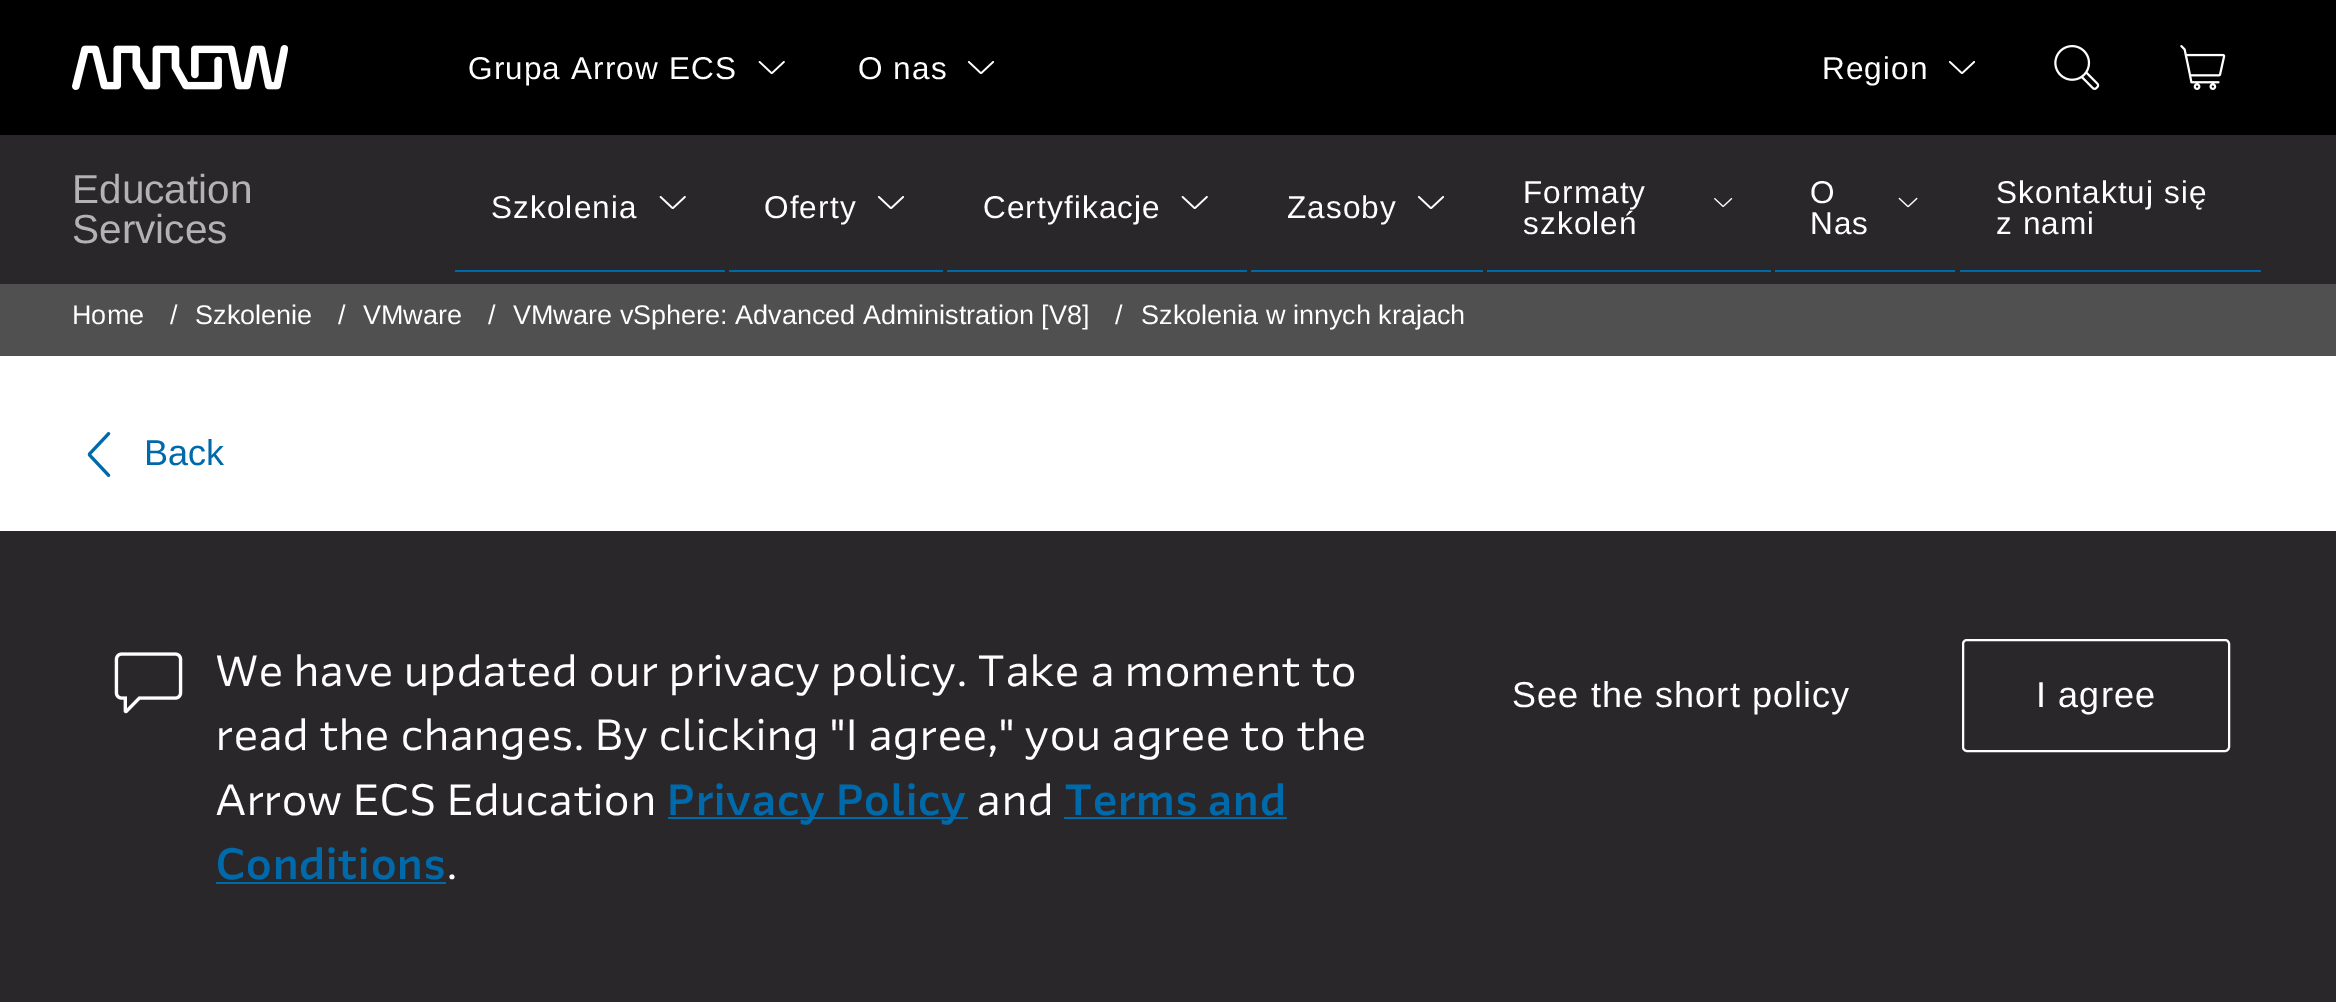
%!PS-Adobe-3.0
%%BoundingBox: 0 0 2336 1002
%%LanguageLevel: 3
%%Pages: 1
%%EndComments
%%BeginProlog
/rrect { 5 dict begin { /r /h /w /y /x } { exch def } forall
  x r add y moveto x w add y 2 copy h add r arct x w add y h add x 1 index r arct
  x y h add x y r arct x y 2 copy exch w add exch r arct closepath end } def
/drawimage { 5 dict begin { /h /w /y /x /name } { exch def } forall
  gsave x y translate w h scale
  w h 8 [w 0 0 h 0 0] name (r) file false 3 colorimage grestore end } def
%%EndProlog
%%BeginSetup
<< /PageSize [2336 1002] >> setpagedevice
%%EndSetup
%%Page: 1 1
0 1002 translate 1 -1 scale
4 setmiterlimit
1 setgray
0 0 2336 1002 rectfill
0 setgray
0 0 2336 135 rectfill
(images/1.raw) 72 45 216 45 drawimage
(images/2.raw) 758 61 27 13 drawimage
(images/3.raw) 967 61 28 13 drawimage
(images/3.raw) 1948 61 28 13 drawimage
(images/4.raw) 2054 45 46 45 drawimage
(images/5.raw) 2180 45 46 45 drawimage
0.161 0.153 0.165 setrgbcolor
0 135 2336 149 rectfill
0 0.412 0.667 setrgbcolor
455 270 270 2 rectfill
(images/6.raw) 659 196 27 13 drawimage
729 270 214 2 rectfill
(images/7.raw) 877 196 28 13 drawimage
947 270 300 2 rectfill
(images/6.raw) 1181 196 27 13 drawimage
1251 270 232 2 rectfill
(images/7.raw) 1417 196 28 13 drawimage
1487 270 284 2 rectfill
(images/8.raw) 1714 198 19 9 drawimage
1775 270 180 2 rectfill
(images/9.raw) 1898 197 20 11 drawimage
1960 270 301 2 rectfill
0.314 setgray
0 284 2336 72 rectfill
(images/10.raw) 87 432 24 45 drawimage
0.161 0.153 0.165 setrgbcolor
0 531 2336 471 rectfill
(images/11.raw) 114 652 69 62 drawimage
0 0.412 0.667 setrgbcolor
668 817 300 2 rectfill
1064 817 223 2 rectfill
216 882 230 2 rectfill
1 setgray
2 setlinewidth
1963 640 266 111 4 rrect stroke
/LiberationSans-Regular [31.5 0 0 -31.5 0 0] selectfont
468 79 moveto 1.12 0 (Grupa Arrow ECS) ashow
858 79 moveto 1.12 0 (O nas) ashow
1822 79 moveto 1.12 0 (Region) ashow
/LiberationSans-Regular [40.5 0 0 -40.5 0 0] selectfont
0.702 setgray
72 203 moveto (Education) show
72 243 moveto (Services) show
/LiberationSans-Regular [31.5 0 0 -31.5 0 0] selectfont
1 setgray
491 218 moveto 1.12 0 (Szkolenia) ashow
764 218 moveto 1.12 0 (Oferty) ashow
983 218 moveto 1.12 0 (Certyfikacje) ashow
1287 218 moveto 1.12 0 (Zasoby) ashow
1523 203 moveto 1.12 0 (Formaty) ashow
1523 234 moveto 1.12 0 (szkoleń) ashow
1810 203 moveto 1.12 0 (O) ashow
1810 234 moveto 1.12 0 (Nas) ashow
1996 203 moveto 1.12 0 (Skontaktuj się) ashow
1996 234 moveto 1.12 0 (z nami) ashow
/LiberationSans-Regular [27 0 0 -27 0 0] selectfont
72 324 moveto (Home) show
170 324 moveto (/) show
195 324 moveto (Szkolenie) show
338 324 moveto (/) show
363 324 moveto (VMware) show
488 324 moveto (/) show
513 324 moveto (VMware vSphere: Advanced Administration [V8]) show
1115 324 moveto (/) show
1141 324 moveto (Szkolenia w innych krajach) show
/LiberationSans-Regular [36 0 0 -36 0 0] selectfont
0 0.412 0.667 setrgbcolor
144 465 moveto (Back) show
/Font-Regular [42.75 0 0 -42.75 0 0] selectfont
1 setgray
216 686 moveto 1.12 0 (We have updated our privacy policy. Take a moment to) ashow
216 750 moveto 1.12 0 (read the changes. By clicking "I agree," you agree to the) ashow
216 815 moveto 1.12 0 (Arrow ECS Education) ashow
/Font-Medium [42.75 0 0 -42.75 0 0] selectfont
0 0.412 0.667 setrgbcolor
667 815 moveto 1.12 0 (Privacy Policy) ashow
/Font-Regular [42.75 0 0 -42.75 0 0] selectfont
1 setgray
977 815 moveto 1.12 0 (and) ashow
/Font-Medium [42.75 0 0 -42.75 0 0] selectfont
0 0.412 0.667 setrgbcolor
1065 815 moveto 1.12 0 (Terms and) ashow
216 879 moveto 1.12 0 (Conditions) ashow
/Font-Regular [42.75 0 0 -42.75 0 0] selectfont
1 setgray
447 879 moveto 1.12 0 (.) ashow
/LiberationSans-Regular [36 0 0 -36 0 0] selectfont
1512 707 moveto 1.12 0 (See the short policy) ashow
2036 707 moveto 1.12 0 (I agree) ashow
showpage
%%EOF
